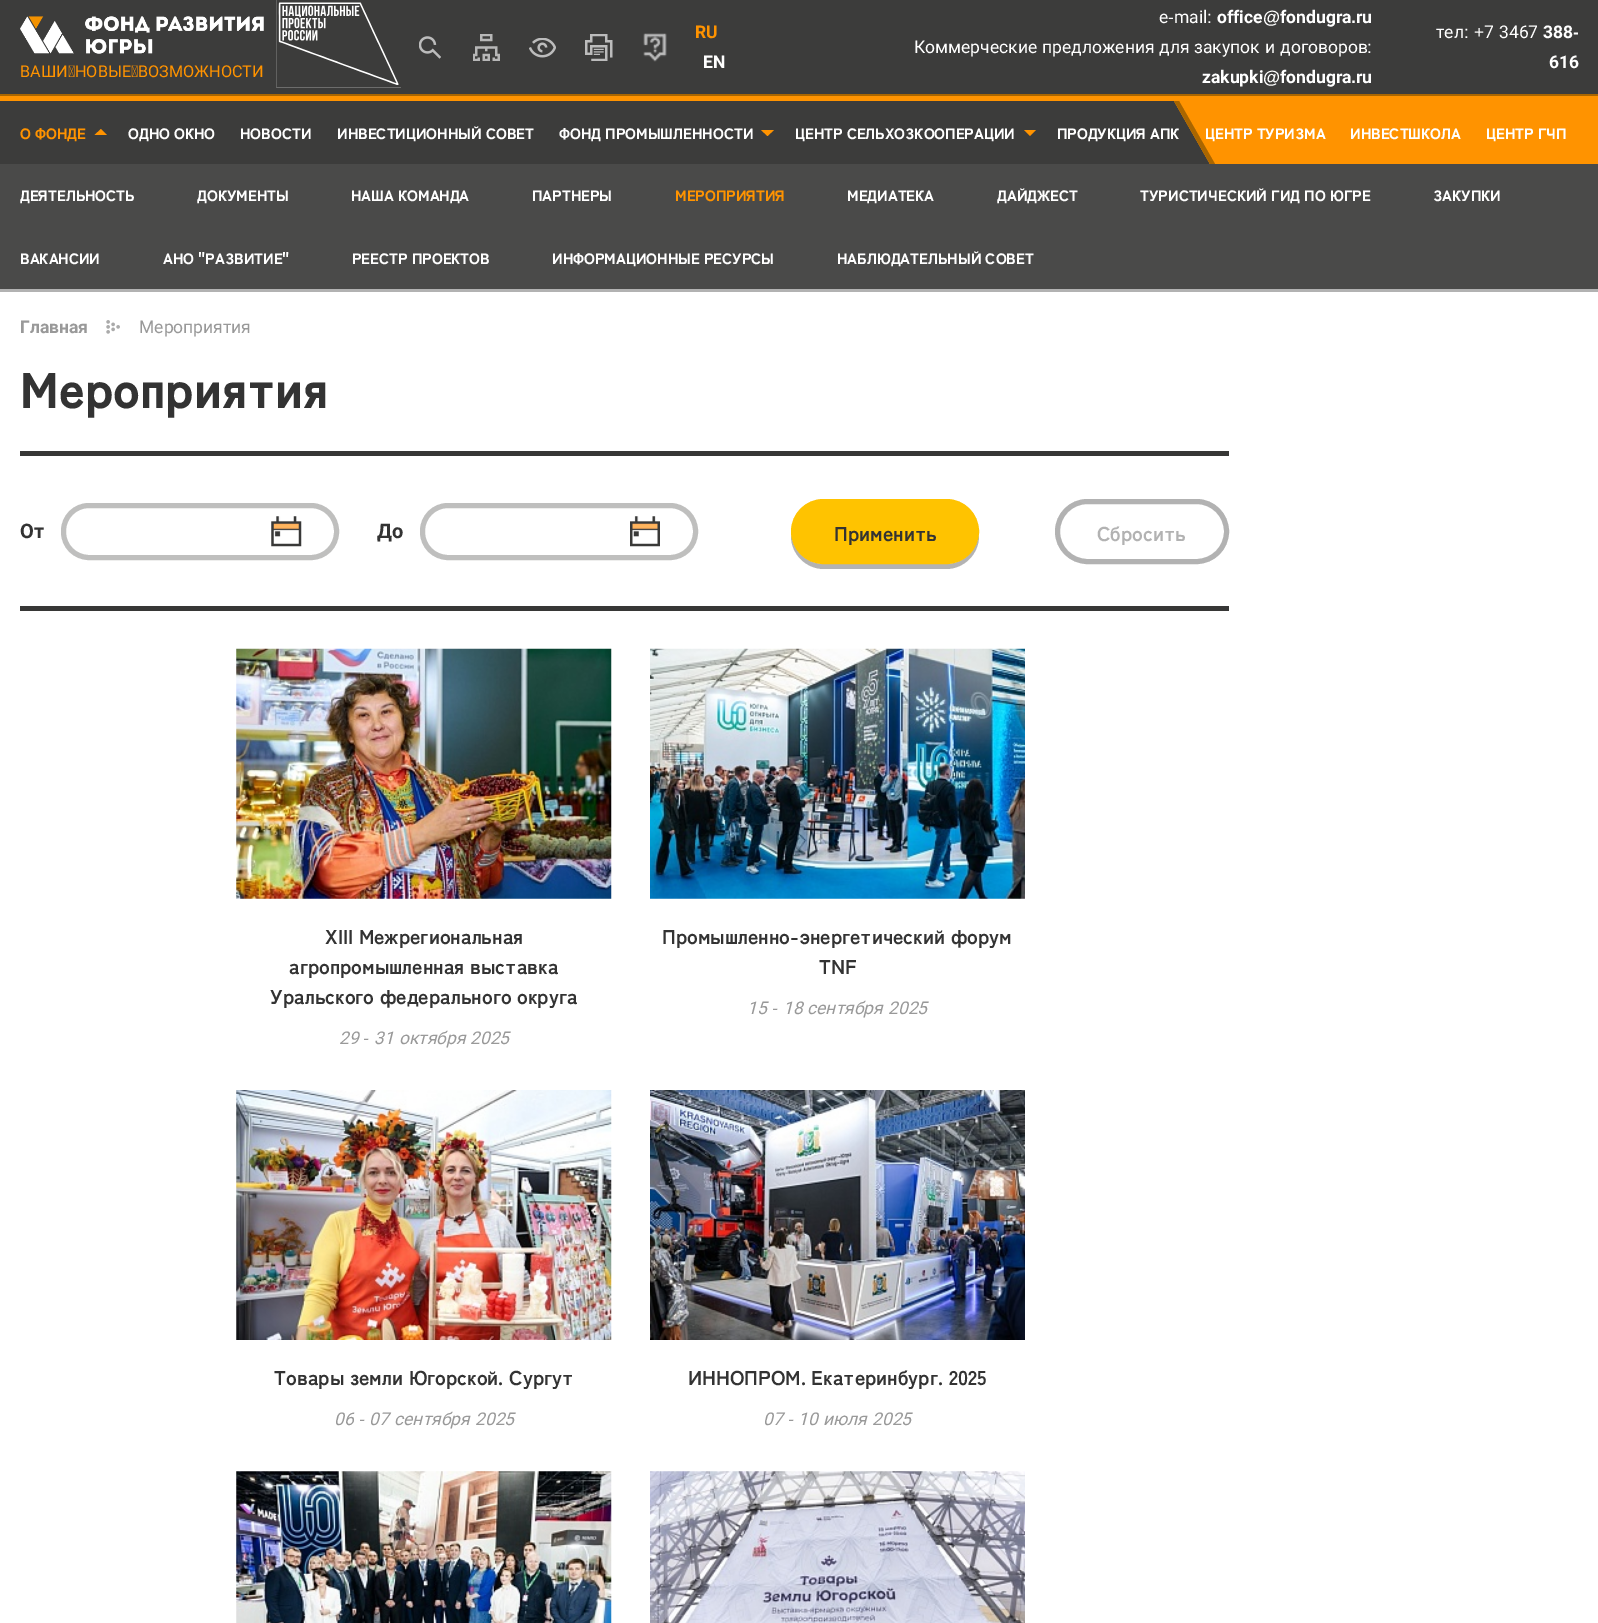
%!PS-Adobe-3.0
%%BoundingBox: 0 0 1598 1623
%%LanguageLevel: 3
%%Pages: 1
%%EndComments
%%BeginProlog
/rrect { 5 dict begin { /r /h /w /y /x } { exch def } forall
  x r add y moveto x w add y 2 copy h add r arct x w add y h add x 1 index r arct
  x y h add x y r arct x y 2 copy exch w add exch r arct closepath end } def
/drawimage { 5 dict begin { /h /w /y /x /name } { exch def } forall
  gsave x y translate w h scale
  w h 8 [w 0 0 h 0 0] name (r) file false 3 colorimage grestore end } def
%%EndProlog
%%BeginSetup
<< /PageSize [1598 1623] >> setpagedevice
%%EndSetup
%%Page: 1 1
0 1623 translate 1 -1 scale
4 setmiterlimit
1 setgray
0 0 1598 1623 rectfill
0.235 0.235 0.231 setrgbcolor
0 0 1598 94 rectfill
0.667 0.4 0 setrgbcolor
0 94 1598 2 rectfill
(images/1.raw) 276 0 125 88 drawimage
(images/2.raw) 419 36 22 23 drawimage
(images/3.raw) 473 34 27 27 drawimage
(images/4.raw) 529 38 27 20 drawimage
(images/5.raw) 585 34 28 27 drawimage
(images/6.raw) 643 33 24 29 drawimage
(images/7.raw) 20 16 244 38 drawimage
0.235 0.235 0.231 setrgbcolor
0 101 1210 63 rectfill
1 0.576 0 setrgbcolor
0 96 1598 5 rectfill
newpath 1174 101 moveto 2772 101 lineto 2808 164 lineto 1210 164 lineto closepath fill
0.667 0.4 0 setrgbcolor
newpath 1174 101 moveto 1179 101 lineto 1215 164 lineto 1210 164 lineto closepath fill
1 0.576 0 setrgbcolor
newpath 107 135 moveto 94.5 135 lineto 101 129 lineto closepath fill
newpath 761 130 moveto 774 130 lineto 767.5 136 lineto closepath fill
newpath 1024 130 moveto 1036 130 lineto 1030 136 lineto closepath fill
0.29 0.29 0.286 setrgbcolor
0 164 1598 125 rectfill
0.698 setgray
0 289 1598 3 rectfill
(images/8.raw) 106 320 14 14 drawimage
0.216 0.216 0.212 setrgbcolor
20 451 1209 5 rectfill
20 606 1209 5 rectfill
0.749 0.749 0.745 setrgbcolor
5 setlinewidth
63.5 505.5 273 52 25.5 rrect stroke
(images/9.raw) 271 516 31 31 drawimage
422.5 505.5 273 52 25.5 rrect stroke
(images/10.raw) 630 516 30 31 drawimage
0.702 setgray
newpath 791 532 moveto 791 536 lineto 791 554 806 569 824 569 curveto 946 569 lineto 964 569 979 554 979 536 curveto 979 532 lineto 978 550 964 564 946 564 curveto 824 564 lineto 806 564 792 550 791 532 curveto closepath fill
1 0.765 0 setrgbcolor
793.5 501.5 183 60 30 rrect gsave fill grestore
stroke
0.698 setgray
1057.5 501.5 169 60 30 rrect stroke
(images/11.raw) 236 648 376 251 drawimage
(images/12.raw) 650 648 375 251 drawimage
(images/13.raw) 236 1090 376 250 drawimage
(images/14.raw) 650 1090 375 250 drawimage
(images/15.raw) 236 1471 376 152 drawimage
(images/16.raw) 650 1471 375 152 drawimage
/Roboto-Bold [17.5 0 0 -17.5 0 0] selectfont
1 0.576 0 setrgbcolor
695 38 moveto (RU) show
1 setgray
703 68 moveto (EN) show
/Roboto-Regular [17.5 0 0 -17.5 0 0] selectfont
1159 23 moveto (e) show
/LiberationSans-Regular [17.5 0 0 -17.5 0 0] selectfont
1168 23 moveto (-) show
/Roboto-Regular [17.5 0 0 -17.5 0 0] selectfont
1174 23 moveto (mail) show
/LiberationSans-Regular [17.5 0 0 -17.5 0 0] selectfont
1207 23 moveto (:) show
/Roboto-Bold [17.5 0 0 -17.5 0 0] selectfont
1217 23 moveto (office) show
/LiberationSans-Bold [17.5 0 0 -17.5 0 0] selectfont
1263 23 moveto (@) show
/Roboto-Bold [17.5 0 0 -17.5 0 0] selectfont
1280 23 moveto (fondugra) show
1356 23 moveto (ru) show
/LiberationSans-Bold [17.5 0 0 -17.5 0 0] selectfont
1351 23 moveto (.) show
/Roboto-Regular [17.5 0 0 -17.5 0 0] selectfont
914 53 moveto (Коммерческие) show
1042 53 moveto (предложения) show
1159 53 moveto (для) show
1194 53 moveto (закупок) show
1265 53 moveto (и) show
1280 53 moveto (договоров) show
/LiberationSans-Regular [17.5 0 0 -17.5 0 0] selectfont
1367 53 moveto (:) show
/Roboto-Bold [17.5 0 0 -17.5 0 0] selectfont
1202 83 moveto (zakupki) show
/LiberationSans-Bold [17.5 0 0 -17.5 0 0] selectfont
1263 83 moveto (@) show
/Roboto-Bold [17.5 0 0 -17.5 0 0] selectfont
1280 83 moveto (fondugra) show
/LiberationSans-Bold [17.5 0 0 -17.5 0 0] selectfont
1351 83 moveto (.) show
/Roboto-Bold [17.5 0 0 -17.5 0 0] selectfont
1356 83 moveto (ru) show
/Roboto-Regular [17.5 0 0 -17.5 0 0] selectfont
1436 38 moveto (тел) show
/LiberationSans-Regular [17.5 0 0 -17.5 0 0] selectfont
1464 38 moveto (: +) show
/Roboto-Regular [17.5 0 0 -17.5 0 0] selectfont
1484 38 moveto (7) show
1499 38 moveto (3467) show
/Roboto-Bold [17.5 0 0 -17.5 0 0] selectfont
1543 38 moveto (388) show
/LiberationSans-Bold [17.5 0 0 -17.5 0 0] selectfont
1573 38 moveto (-) show
/Roboto-Bold [17.5 0 0 -17.5 0 0] selectfont
1549 68 moveto (616) show
/Roboto-Regular [16.25 0 0 -16.25 0 0] selectfont
1 0.576 0 setrgbcolor
20 77 moveto (ВАШИ НОВЫЕ ВОЗМОЖНОСТИ) show
/ZenKakuGothicAntique-Black [15 0 0 -15 0 0] selectfont
20 139 moveto (О ФОНДЕ) show
1 setgray
128 139 moveto (ОДНО ОКНО) show
240 139 moveto (НОВОСТИ) show
337 139 moveto (ИНВЕСТИЦИОННЫЙ СОВЕТ) show
559 139 moveto (ФОНД ПРОМЫШЛЕННОСТИ) show
795 139 moveto (ЦЕНТР СЕЛЬХОЗКООПЕРАЦИИ) show
1057 139 moveto (ПРОДУКЦИЯ АПК) show
1205 139 moveto (ЦЕНТР ТУРИЗМА) show
1350 139 moveto (ИНВЕСТШКОЛА) show
1486 139 moveto (ЦЕНТР ГЧП) show
20 201 moveto (ДЕЯТЕЛЬНОСТЬ) show
197 201 moveto (ДОКУМЕНТЫ) show
351 201 moveto (НАША КОМАНДА) show
532 201 moveto (ПАРТНЕРЫ) show
1 0.576 0 setrgbcolor
675 201 moveto (МЕРОПРИЯТИЯ) show
1 setgray
847 201 moveto (МЕДИАТЕКА) show
997 201 moveto (ДАЙДЖЕСТ) show
1140 201 moveto (ТУРИСТИЧЕСКИЙ ГИД ПО ЮГРЕ) show
1433 201 moveto (ЗАКУПКИ) show
20 264 moveto (ВАКАНСИИ) show
163 264 moveto (АНО "РАЗВИТИЕ") show
352 264 moveto (РЕЕСТР ПРОЕКТОВ) show
552 264 moveto (ИНФОРМАЦИОННЫЕ РЕСУРСЫ) show
837 264 moveto (НАБЛЮДАТЕЛЬНЫЙ СОВЕТ) show
/Roboto-Bold [17.5 0 0 -17.5 0 0] selectfont
0.6 setgray
20 333 moveto (Главная) show
/Roboto-Regular [17.5 0 0 -17.5 0 0] selectfont
139 333 moveto (Мероприятия) show
/ZenKakuGothicAntique-Black [50 0 0 -50 0 0] selectfont
0.2 setgray
20 408 moveto (Мероприятия) show
/Roboto-Bold [20 0 0 -20 0 0] selectfont
20 538 moveto (От) show
377 538 moveto (До) show
/ZenKakuGothicAntique-Bold [20 0 0 -20 0 0] selectfont
834 541 moveto (Применить) show
0.698 setgray
1097 541 moveto (Сбросить) show
0.2 setgray
325 944 moveto (XIII Межрегиональная) show
289 974 moveto (агропромышленная выставка) show
270 1004 moveto (Уральского федерального округа) show
/Roboto-Italic [17.5 0 0 -17.5 0 0] selectfont
0.6 setgray
339 1044 moveto (29) show
/LiberationSans-Italic [17.5 0 0 -17.5 0 0] selectfont
363 1044 moveto (-) show
/Roboto-Italic [17.5 0 0 -17.5 0 0] selectfont
374 1044 moveto (31) show
399 1044 moveto (октября) show
470 1044 moveto (2025) show
/ZenKakuGothicAntique-Bold [20 0 0 -20 0 0] selectfont
0.2 setgray
662 944 moveto (Промышленно-энергетический форум) show
819 974 moveto (TNF) show
/Roboto-Italic [17.5 0 0 -17.5 0 0] selectfont
0.6 setgray
747 1014 moveto (15) show
/LiberationSans-Italic [17.5 0 0 -17.5 0 0] selectfont
772 1014 moveto (-) show
/Roboto-Italic [17.5 0 0 -17.5 0 0] selectfont
783 1014 moveto (18) show
807 1014 moveto (сентября) show
888 1014 moveto (2025) show
/ZenKakuGothicAntique-Bold [20 0 0 -20 0 0] selectfont
0.2 setgray
274 1385 moveto (Товары земли Югорской. Сургут) show
/Roboto-Italic [17.5 0 0 -17.5 0 0] selectfont
0.6 setgray
334 1425 moveto (06) show
/LiberationSans-Italic [17.5 0 0 -17.5 0 0] selectfont
359 1425 moveto (-) show
/Roboto-Italic [17.5 0 0 -17.5 0 0] selectfont
369 1425 moveto (07) show
394 1425 moveto (сентября) show
475 1425 moveto (2025) show
/ZenKakuGothicAntique-Bold [20 0 0 -20 0 0] selectfont
0.2 setgray
688 1385 moveto (ИННОПРОМ. Екатеринбург. 2025) show
/Roboto-Italic [17.5 0 0 -17.5 0 0] selectfont
0.6 setgray
763 1425 moveto (07) show
/LiberationSans-Italic [17.5 0 0 -17.5 0 0] selectfont
788 1425 moveto (-) show
/Roboto-Italic [17.5 0 0 -17.5 0 0] selectfont
798 1425 moveto (10) show
823 1425 moveto (июля) show
872 1425 moveto (2025) show
showpage
%%EOF
